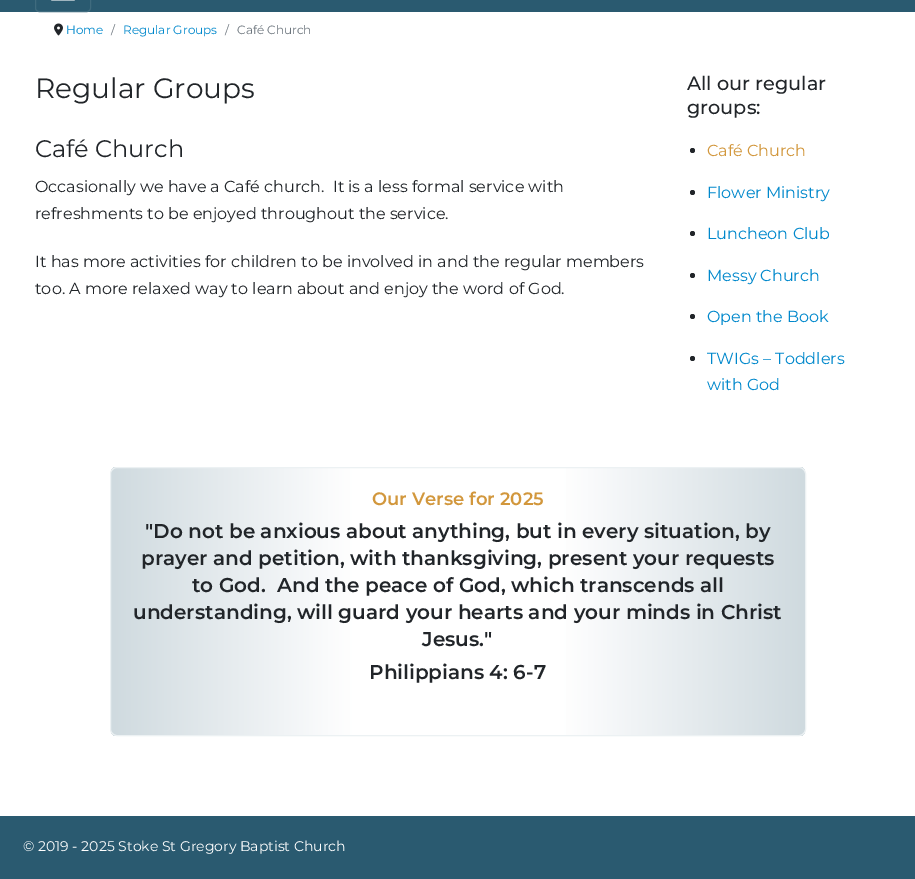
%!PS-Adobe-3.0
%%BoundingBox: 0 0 915 879
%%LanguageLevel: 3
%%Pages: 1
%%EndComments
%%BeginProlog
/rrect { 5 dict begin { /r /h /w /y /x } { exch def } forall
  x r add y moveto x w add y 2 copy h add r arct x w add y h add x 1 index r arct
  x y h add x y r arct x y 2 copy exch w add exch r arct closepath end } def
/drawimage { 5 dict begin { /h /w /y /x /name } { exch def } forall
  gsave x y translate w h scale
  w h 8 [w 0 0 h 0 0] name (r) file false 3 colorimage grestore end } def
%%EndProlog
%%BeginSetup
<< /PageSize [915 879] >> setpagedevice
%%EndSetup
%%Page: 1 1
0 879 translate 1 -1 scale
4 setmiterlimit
1 setgray
0 0 915 879 rectfill
0.165 0.353 0.439 setrgbcolor
0 0 915 12 rectfill
0.247 0.42 0.494 setrgbcolor
35.5 -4.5 55 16 3.5 rrect stroke
(images/1.raw) 51 0 24 1 drawimage
(images/2.raw) 54 23 9 13 drawimage
0.129 0.145 0.161 setrgbcolor
newpath 692.5 150.5 2.5 0 360 arc closepath fill
newpath 692.5 192.5 2.5 0 360 arc closepath fill
newpath 692.5 233.5 2.5 0 360 arc closepath fill
newpath 692.5 275.5 2.5 0 360 arc closepath fill
newpath 692.5 316.5 2.5 0 360 arc closepath fill
newpath 692.5 358.5 2.5 0 360 arc closepath fill
gsave
110 467 696 269 7 rrect clip newpath
gsave newpath 111 467 moveto 805 467 lineto 805 736 lineto 111 736 lineto closepath clip newpath
<< /ShadingType 2 /ColorSpace /DeviceRGB /Coords [111 602 805 602] /Extend [true true] /Function << /FunctionType 3 /Domain [0 1] /Functions [<< /FunctionType 2 /Domain [0 1] /C0 [0.812 0.855 0.875] /C1 [1 1 1] /N 1 >> << /FunctionType 2 /Domain [0 1] /C0 [1 1 1] /C1 [1 1 1] /N 1 >> << /FunctionType 2 /Domain [0 1] /C0 [1 1 1] /C1 [0.812 0.855 0.875] /N 1 >>] /Bounds [0.35 0.65] /Encode [0 1 0 1 0 1] >> >> shfill grestore
grestore
0.925 0.945 0.953 setrgbcolor
110.5 467.5 695 268 6.5 rrect stroke
0.165 0.353 0.439 setrgbcolor
0 816 915 63 rectfill
/Montserrat-Regular [12 0 0 -12 0 0] selectfont
0 0.533 0.8 setrgbcolor
66 34 moveto (Home) show
0.424 0.459 0.49 setrgbcolor
111 34 moveto (/) show
0 0.533 0.8 setrgbcolor
123 34 moveto (Regular Groups) show
0.424 0.459 0.49 setrgbcolor
225 34 moveto (/) show
237 34 moveto (Café Church) show
/Montserrat-Regular [28 0 0 -28 0 0] selectfont
0.129 0.145 0.161 setrgbcolor
35 98 moveto (Regular Groups) show
/Montserrat-Regular [24 0 0 -24 0 0] selectfont
35 157 moveto (Café Church) show
/Montserrat-Regular [16 0 0 -16 0 0] selectfont
35 192 moveto (Occasionally we have a Café church.  It is a less formal service with) show
35 219 moveto (refreshments to be enjoyed throughout the service.) show
35 267 moveto (It has more activities for children to be involved in and the regular members) show
35 294 moveto (too. A more relaxed way to learn about and enjoy the word of God.) show
/Montserrat-Medium [19.25 0 0 -19.25 0 0] selectfont
687 90 moveto (All our regular) show
687 114 moveto (groups:) show
/Montserrat-Regular [16 0 0 -16 0 0] selectfont
0.824 0.592 0.235 setrgbcolor
707 156 moveto (Café Church) show
0 0.533 0.8 setrgbcolor
707 198 moveto (Flower Ministry) show
707 239 moveto (Luncheon Club) show
707 281 moveto (Messy Church) show
707 322 moveto (Open the Book) show
707 364 moveto (TWIGs – Toddlers) show
707 390 moveto (with God) show
/Montserrat-SemiBold [18 0 0 -18 0 0] selectfont
0.824 0.592 0.235 setrgbcolor
372 505 moveto (Our Verse for 2025) show
/Montserrat-SemiBold [20 0 0 -20 0 0] selectfont
0.129 0.145 0.161 setrgbcolor
145 538 moveto ("Do not be anxious about anything, but in every situation, by) show
141 565 moveto (prayer and petition, with thanksgiving, present your requests) show
192 592 moveto (to God.  And the peace of God, which transcends all) show
133 619 moveto (understanding, will guard your hearts and your minds in Christ) show
422 646 moveto (Jesus.") show
369 679 moveto (Philippians 4: 6-7) show
/Montserrat-Regular [14 0 0 -14 0 0] selectfont
1 setgray
23 851 moveto (© 2019 - 2025 Stoke St Gregory Baptist Church) show
showpage
%%EOF
